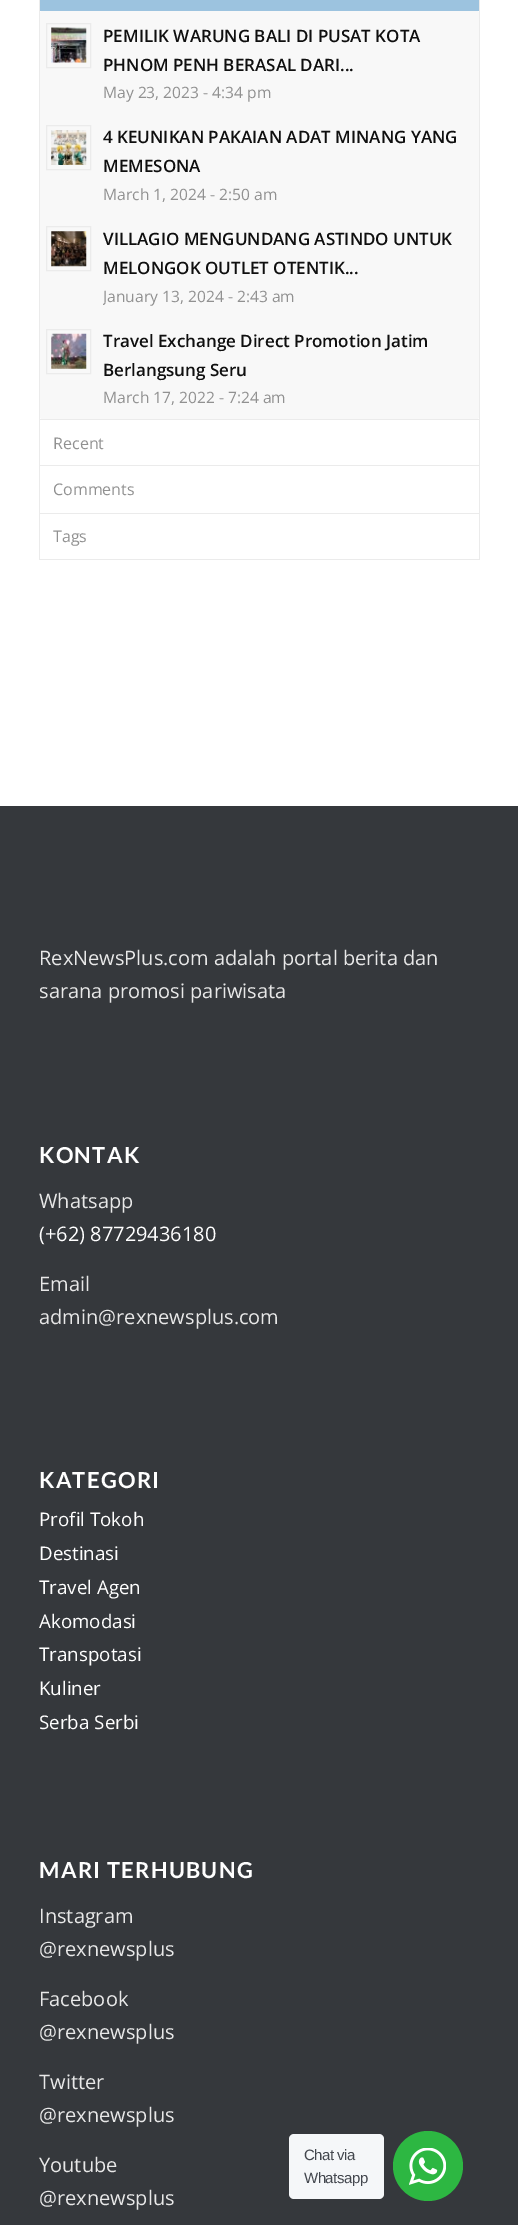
%!PS-Adobe-3.0
%%BoundingBox: 0 0 518 2225
%%LanguageLevel: 3
%%Pages: 1
%%EndComments
%%BeginProlog
/rrect { 5 dict begin { /r /h /w /y /x } { exch def } forall
  x r add y moveto x w add y 2 copy h add r arct x w add y h add x 1 index r arct
  x y h add x y r arct x y 2 copy exch w add exch r arct closepath end } def
/drawimage { 5 dict begin { /h /w /y /x /name } { exch def } forall
  gsave x y translate w h scale
  w h 8 [w 0 0 h 0 0] name (r) file false 3 colorimage grestore end } def
%%EndProlog
%%BeginSetup
<< /PageSize [518 2225] >> setpagedevice
%%EndSetup
%%Page: 1 1
0 2225 translate 1 -1 scale
4 setmiterlimit
1 setgray
0 0 518 2225 rectfill
0.922 setgray
479 0 1 560 rectfill
39 559 441 1 rectfill
39 0 1 560 rectfill
0.612 0.765 0.875 setrgbcolor
40 0 439 11 rectfill
0.973 setgray
40 11 439 408 2.5 rrect fill
0.922 setgray
46.5 23.5 44 44 rectstroke
(images/1.raw) 51 27 36 36 drawimage
46.5 125.5 44 44 rectstroke
(images/2.raw) 51 130 36 35 drawimage
46.5 226.5 44 44 rectstroke
(images/3.raw) 51 231 36 36 drawimage
46.5 329.5 44 44 rectstroke
(images/4.raw) 51 333 36 36 drawimage
40 419 439 1 rectfill
40 465 439 1 rectfill
40 513 439 1 rectfill
0.208 0.22 0.235 setrgbcolor
0 806 518 1419 rectfill
0.961 0.969 0.976 setrgbcolor
289 2134 95 65 5 rrect fill
0.176 0.718 0.259 setrgbcolor
newpath 428 2166 35 0 360 arc closepath fill
(images/5.raw) 409 2148 37 37 drawimage
/OpenSans-SemiBold [17 0 0 -17 0 0] selectfont
0.059 setgray
103 42 moveto (PEMILIK WARUNG BALI DI PUSAT KOTA) show
103 71 moveto (PHNOM PENH BERASAL DARI...) show
/OpenSans-Regular [15.6 0 0 -15.6 0 0] selectfont
0.569 setgray
103 98 moveto (May 23, 2023 - 4:34 pm) show
/OpenSans-SemiBold [17 0 0 -17 0 0] selectfont
0.059 setgray
103 143 moveto (4 KEUNIKAN PAKAIAN ADAT MINANG YANG) show
103 172 moveto (MEMESONA) show
/OpenSans-Regular [15.6 0 0 -15.6 0 0] selectfont
0.569 setgray
103 200 moveto (March 1, 2024 - 2:50 am) show
/OpenSans-SemiBold [17 0 0 -17 0 0] selectfont
0.059 setgray
103 245 moveto (VILLAGIO MENGUNDANG ASTINDO UNTUK) show
103 274 moveto (MELONGOK OUTLET OTENTIK...) show
gsave
103 224 370 87 rectclip
/OpenSans-Regular [15.6 0 0 -15.6 0 0] selectfont
0.569 setgray
103 302 moveto (January 13, 2024 - 2:43 am) show
grestore
103 347 moveto (Travel Exchange Direct Promotion Jatim) show
103 376 moveto (Berlangsung Seru) show
/OpenSans-Regular [15.6 0 0 -15.6 0 0] selectfont
0.569 setgray
103 403 moveto (March 17, 2022 - 7:24 am) show
/OpenSans-Regular [16 0 0 -16 0 0] selectfont
53 449 moveto (Recent) show
53 495 moveto (Comments) show
53 542 moveto (Tags) show
/OpenSans-Regular [20 0 0 -20 0 0] selectfont
0.91 setgray
39 965 moveto (RexNewsPlus.com adalah portal berita dan) show
39 998 moveto (sarana promosi pariwisata) show
/Lato-Bold [22 0 0 -22 0 0] selectfont
1 setgray
39 1163 moveto 1.25 0 (KONTAK) ashow
/OpenSans-Regular [20 0 0 -20 0 0] selectfont
0.91 setgray
39 1208 moveto (Whatsapp) show
1 setgray
39 1241 moveto (\(+62\) 87729436180) show
0.91 setgray
39 1291 moveto (Email) show
39 1324 moveto (admin@rexnewsplus.com) show
/Lato-Bold [22 0 0 -22 0 0] selectfont
1 setgray
39 1488 moveto 1.25 0 (KATEGORI) ashow
/OpenSans-Regular [18.75 0 0 -18.75 0 0] selectfont
39 1526 moveto (Profil Tokoh) show
39 1560 moveto (Destinasi) show
39 1594 moveto (Travel Agen) show
39 1628 moveto (Akomodasi) show
39 1661 moveto (Transpotasi) show
39 1695 moveto (Kuliner) show
39 1729 moveto (Serba Serbi) show
/Lato-Bold [22 0 0 -22 0 0] selectfont
39 1878 moveto 1.25 0 (MARI TERHUBUNG) ashow
/OpenSans-Regular [20 0 0 -20 0 0] selectfont
0.91 setgray
39 1923 moveto (Instagram) show
39 1956 moveto (@rexnewsplus) show
39 2006 moveto (Facebook) show
39 2039 moveto (@rexnewsplus) show
39 2089 moveto (Twitter) show
39 2122 moveto (@rexnewsplus) show
39 2172 moveto (Youtube) show
39 2205 moveto (@rexnewsplus) show
/LiberationSans-Regular [15 0 0 -15 0 0] selectfont
0.263 0.278 0.306 setrgbcolor
304 2160 moveto -0.5 0 (Chat via) ashow
304 2183 moveto -0.5 0 (Whatsapp) ashow
showpage
%%EOF
